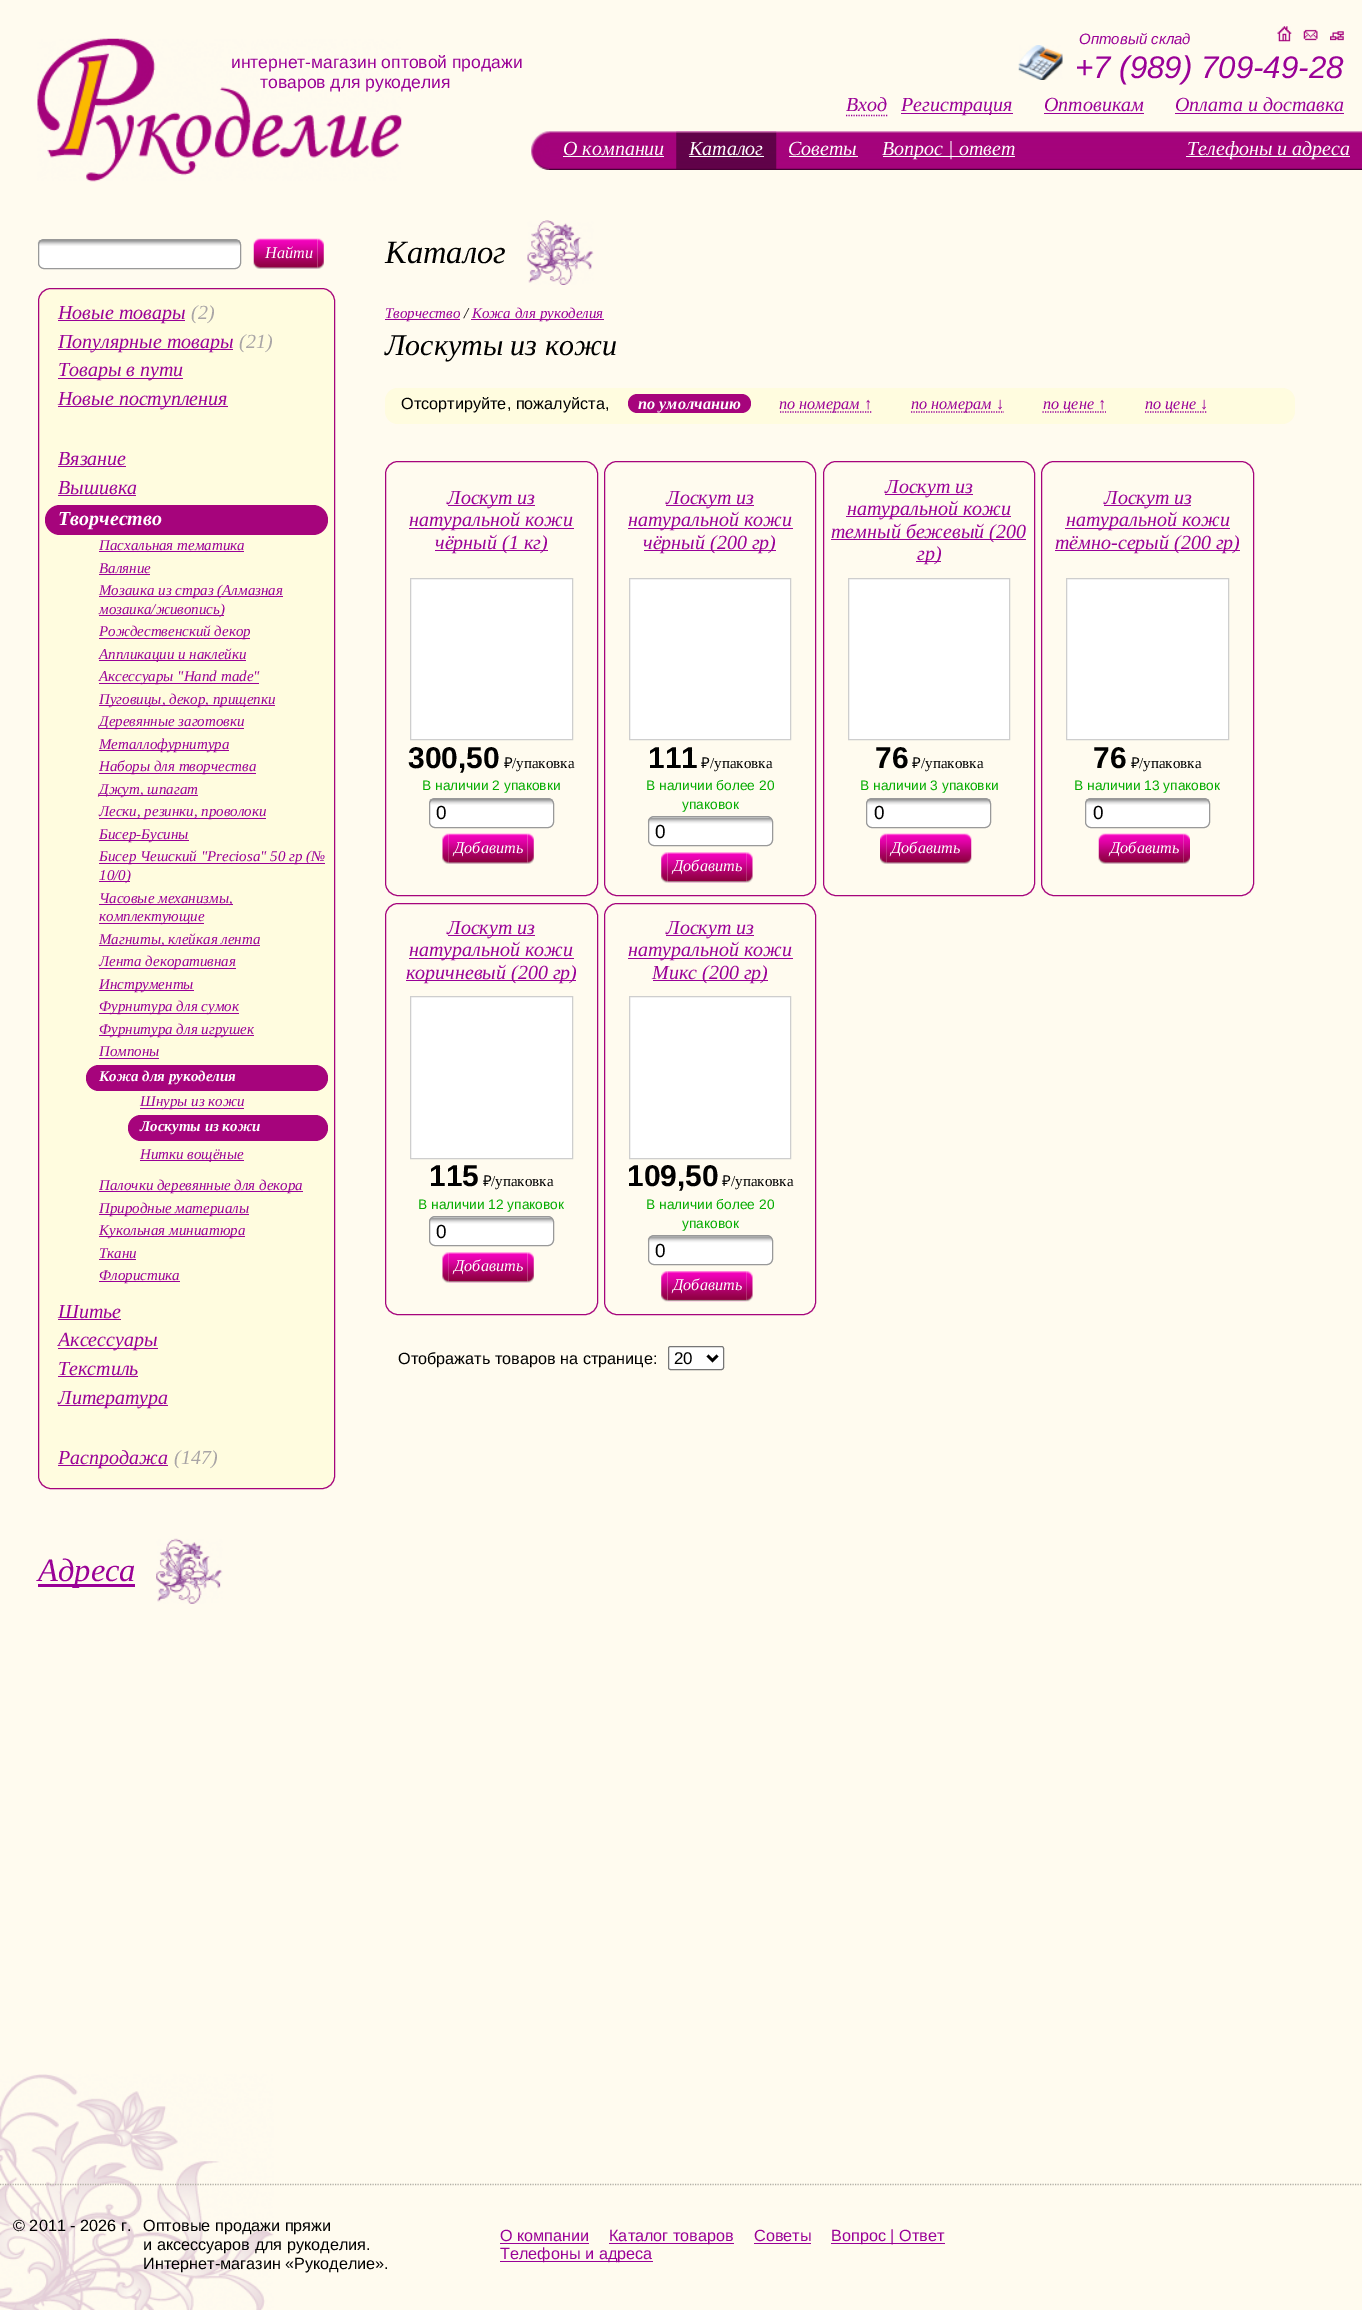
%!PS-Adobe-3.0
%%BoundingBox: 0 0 1362 2310
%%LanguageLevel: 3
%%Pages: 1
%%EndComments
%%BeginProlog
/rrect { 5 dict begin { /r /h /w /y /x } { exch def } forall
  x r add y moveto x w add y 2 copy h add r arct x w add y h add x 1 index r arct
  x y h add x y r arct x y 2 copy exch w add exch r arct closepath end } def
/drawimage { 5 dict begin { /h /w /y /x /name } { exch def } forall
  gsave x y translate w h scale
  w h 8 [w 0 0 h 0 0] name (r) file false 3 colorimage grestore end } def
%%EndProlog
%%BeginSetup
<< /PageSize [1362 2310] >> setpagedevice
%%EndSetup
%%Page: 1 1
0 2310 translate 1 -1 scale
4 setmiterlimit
1 0.984 0.937 setrgbcolor
0 0 1362 2310 rectfill
(images/1.raw) 0 2074 274 236 drawimage
(images/2.raw) 1277 26 15 16 drawimage
(images/3.raw) 1303 29 15 12 drawimage
(images/4.raw) 1330 31 14 10 drawimage
(images/5.raw) 37 38 365 144 drawimage
(images/6.raw) 1018 45 45 35 drawimage
0.604 0.004 0.592 setrgbcolor
1.2 setlinewidth
[1.25 1.25] 0 setdash
newpath 846 115.5 moveto 887.5 115.5 lineto stroke
901 113 112 1 rectfill
1044 113 100 1 rectfill
1175 113 169 1 rectfill
(images/7.raw) 531 131 19 39 drawimage
(images/8.raw) 550 131 812 39 drawimage
1 setgray
563 156 101 1 rectfill
(images/9.raw) 676 131 101 38 drawimage
689 156 75 1 rectfill
789 156 69 1 rectfill
883 156 132 1 rectfill
1186 156 164 1 rectfill
38 239 203 30 6 rrect fill
(images/10.raw) 37 240 204 6 drawimage
0.6 setgray
1 setlinewidth
[] 0 setdash
38.5 239.5 202 29 5.5 rrect stroke
(images/11.raw) 253 238 7 31 drawimage
(images/12.raw) 260 238 58 31 drawimage
(images/13.raw) 317 238 7 31 drawimage
1 0.988 0.875 setrgbcolor
38.5 288.5 296 1200 12.5 rrect gsave fill grestore
0.651 0.016 0.486 setrgbcolor
stroke
0.604 0.004 0.592 setrgbcolor
58 320 127 1 rectfill
58 349 175 1 rectfill
58 378 125 1 rectfill
58 406 170 1 rectfill
58 466 68 1 rectfill
58 495 78 1 rectfill
0.651 0.016 0.486 setrgbcolor
45 505 283 30 15 rrect fill
0.604 0.004 0.592 setrgbcolor
99 551 145 1 rectfill
99 574 51 1 rectfill
99 596 184 1 rectfill
99 615 125 1 rectfill
99 638 151 1 rectfill
99 660 147 1 rectfill
99 683 160 1 rectfill
99 705 176 1 rectfill
99 728 145 1 rectfill
99 750 130 1 rectfill
99 773 157 1 rectfill
99 795 99 1 rectfill
99 818 167 1 rectfill
99 840 90 1 rectfill
99 863 226 1 rectfill
99 881 31 1 rectfill
99 904 134 1 rectfill
99 923 105 1 rectfill
99 945 161 1 rectfill
99 968 137 1 rectfill
99 990 95 1 rectfill
99 1013 140 1 rectfill
99 1035 155 1 rectfill
99 1058 60 1 rectfill
0.651 0.016 0.486 setrgbcolor
86 1065 242 26 13 rrect fill
0.604 0.004 0.592 setrgbcolor
140 1108 104 1 rectfill
0.651 0.016 0.486 setrgbcolor
128 1115 200 26 13 rrect fill
0.604 0.004 0.592 setrgbcolor
140 1160 104 1 rectfill
99 1191 204 1 rectfill
99 1214 150 1 rectfill
99 1236 146 1 rectfill
99 1259 37 1 rectfill
99 1281 81 1 rectfill
58 1319 63 1 rectfill
58 1348 100 1 rectfill
58 1376 80 1 rectfill
58 1405 110 1 rectfill
58 1465 110 1 rectfill
(images/14.raw) 156 1538 67 66 drawimage
38 1584 97 3 rectfill
(images/15.raw) 527 220 67 65 drawimage
385 319 75 1 rectfill
471 319 133 1 rectfill
1 0.988 0.875 setrgbcolor
385 388 910 36 13 rrect fill
0.651 0.016 0.486 setrgbcolor
628 394 123 19 9.5 rrect fill
0.604 0.004 0.592 setrgbcolor
1.2 setlinewidth
[1.25 1.25] 0 setdash
newpath 780 412 moveto 872.5 412 lineto stroke
newpath 911 412 moveto 1004 412 lineto stroke
newpath 1042.5 412 moveto 1106 412 lineto stroke
newpath 1145 412 moveto 1207.5 412 lineto stroke
0.651 0.016 0.486 setrgbcolor
1 setlinewidth
[] 0 setdash
385.5 461.5 212 434 12.5 rrect stroke
0.604 0.004 0.592 setrgbcolor
448 505 87 1 rectfill
409 528 165 1 rectfill
435 550 113 1 rectfill
1 setgray
newpath 410.5 578.5 moveto 572.5 578.5 lineto 572.5 739.5 lineto 410.5 739.5 lineto closepath gsave fill grestore
0.808 setgray
stroke
1 setgray
429 798 125 30 6 rrect fill
(images/16.raw) 429 798 125 7 drawimage
0.6 setgray
429.5 798.5 124 29 5.5 rrect stroke
(images/17.raw) 442 833 7 31 drawimage
(images/18.raw) 448 833 80 31 drawimage
(images/19.raw) 527 833 7 31 drawimage
0.651 0.016 0.486 setrgbcolor
604.5 461.5 211 434 12.5 rrect stroke
0.604 0.004 0.592 setrgbcolor
666 505 88 1 rectfill
628 528 165 1 rectfill
644 550 132 1 rectfill
1 setgray
newpath 629.5 578.5 moveto 790.5 578.5 lineto 790.5 739.5 lineto 629.5 739.5 lineto closepath gsave fill grestore
0.808 setgray
stroke
1 setgray
648 816 125 30 6 rrect fill
(images/20.raw) 647 817 125 7 drawimage
0.6 setgray
648.5 816.5 124 29 5.5 rrect stroke
(images/21.raw) 661 852 7 31 drawimage
(images/22.raw) 667 852 80 31 drawimage
(images/23.raw) 746 852 7 31 drawimage
0.651 0.016 0.486 setrgbcolor
823.5 461.5 211 434 12.5 rrect stroke
0.604 0.004 0.592 setrgbcolor
885 494 88 1 rectfill
846 516 165 1 rectfill
831 539 195 1 rectfill
916 561 25 1 rectfill
1 setgray
newpath 848.5 578.5 moveto 1009.5 578.5 lineto 1009.5 739.5 lineto 848.5 739.5 lineto closepath gsave fill grestore
0.808 setgray
stroke
1 setgray
866 798 125 30 6 rrect fill
(images/24.raw) 866 798 125 7 drawimage
0.6 setgray
866.5 798.5 124 29 5.5 rrect stroke
(images/25.raw) 880 833 7 31 drawimage
(images/26.raw) 886 833 79 31 drawimage
(images/27.raw) 965 833 7 31 drawimage
0.651 0.016 0.486 setrgbcolor
1041.5 461.5 212 434 12.5 rrect stroke
0.604 0.004 0.592 setrgbcolor
1104 505 87 1 rectfill
1065 528 165 1 rectfill
1055 550 185 1 rectfill
1 setgray
newpath 1066.5 578.5 moveto 1228.5 578.5 lineto 1228.5 739.5 lineto 1066.5 739.5 lineto closepath gsave fill grestore
0.808 setgray
stroke
1 setgray
1085 798 125 30 6 rrect fill
(images/28.raw) 1085 798 125 7 drawimage
0.6 setgray
1085.5 798.5 124 29 5.5 rrect stroke
(images/29.raw) 1098 833 7 31 drawimage
(images/30.raw) 1105 833 79 31 drawimage
(images/31.raw) 1183 833 7 31 drawimage
0.651 0.016 0.486 setrgbcolor
385.5 903.5 212 411 12.5 rrect stroke
0.604 0.004 0.592 setrgbcolor
448 935 87 1 rectfill
409 958 165 1 rectfill
406 980 170 1 rectfill
1 setgray
newpath 410.5 996.5 moveto 572.5 996.5 lineto 572.5 1158.5 lineto 410.5 1158.5 lineto closepath gsave fill grestore
0.808 setgray
stroke
1 setgray
429 1216 125 30 6 rrect fill
(images/32.raw) 429 1217 125 7 drawimage
0.6 setgray
429.5 1216.5 124 29 5.5 rrect stroke
(images/33.raw) 442 1252 7 31 drawimage
(images/34.raw) 448 1252 80 31 drawimage
(images/35.raw) 527 1252 7 31 drawimage
0.651 0.016 0.486 setrgbcolor
604.5 903.5 211 411 12.5 rrect stroke
0.604 0.004 0.592 setrgbcolor
666 935 88 1 rectfill
628 958 165 1 rectfill
653 980 115 1 rectfill
1 setgray
newpath 629.5 996.5 moveto 790.5 996.5 lineto 790.5 1158.5 lineto 629.5 1158.5 lineto closepath gsave fill grestore
0.808 setgray
stroke
1 setgray
648 1235 125 30 6 rrect fill
(images/36.raw) 647 1236 126 7 drawimage
0.6 setgray
648.5 1235.5 124 29 5.5 rrect stroke
(images/37.raw) 661 1271 7 31 drawimage
(images/38.raw) 667 1271 80 31 drawimage
(images/39.raw) 746 1271 7 31 drawimage
1 setgray
668.5 1346.5 55 23 2 rrect gsave fill grestore
0.463 setgray
stroke
0 setgray
2.5 setlinewidth
newpath 707.5 1355.5 moveto 712.5 1360.5 lineto 717.5 1355.5 lineto stroke
0.706 0.694 0.659 setrgbcolor
1.2 setlinewidth
[1.25 1.25] 0 setdash
newpath 0 2184.5 moveto 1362.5 2184.5 lineto stroke
0.604 0.004 0.592 setrgbcolor
500 2243 89 1 rectfill
609 2243 125 1 rectfill
754 2243 57 1 rectfill
831 2243 114 1 rectfill
500 2261 153 1 rectfill
/LiberationSans-Italic [15 0 0 -15 0 0] selectfont
1079 44 moveto (Оптовый склад) show
/LiberationSans-Italic [31.25 0 0 -31.25 0 0] selectfont
1075 78 moveto (+7 \(989\) 709-49-28) show
/LiberationSans-Regular [17.5 0 0 -17.5 0 0] selectfont
231 68 moveto (интернет-магазин оптовой продажи) show
260 88 moveto (товаров для рукоделия) show
/LiberationSerif-Italic [20 0 0 -20 0 0] selectfont
846 111 moveto (Вход) show
901 111 moveto (Регистрация) show
1044 111 moveto (Оптовикам) show
1175 111 moveto (Оплата и доставка) show
1 setgray
563 155 moveto (О компании) show
689 155 moveto (Каталог) show
788 155 moveto (Советы) show
882 155 moveto (Вопрос | ответ) show
1187 155 moveto (Телефоны и адреса) show
/LiberationSerif-Italic [16.25 0 0 -16.25 0 0] selectfont
265 258 moveto (Найти) show
/LiberationSerif-Italic [20 0 0 -20 0 0] selectfont
0.604 0.004 0.592 setrgbcolor
58 319 moveto (Новые товары) show
0.663 0.647 0.651 setrgbcolor
191 319 moveto (\(2\)) show
0.604 0.004 0.592 setrgbcolor
58 348 moveto (Популярные товары) show
0.663 0.647 0.651 setrgbcolor
239 348 moveto (\(21\)) show
0.604 0.004 0.592 setrgbcolor
58 376 moveto (Товары в пути) show
58 405 moveto (Новые поступления) show
58 465 moveto (Вязание) show
58 494 moveto (Вышивка) show
/LiberationSerif-BoldItalic [20 0 0 -20 0 0] selectfont
1 setgray
58 525 moveto (Творчество) show
/LiberationSerif-Italic [15 0 0 -15 0 0] selectfont
0.604 0.004 0.592 setrgbcolor
99 550 moveto (Пасхальная тематика) show
99 573 moveto (Валяние) show
99 595 moveto (Мозаика из страз \(Алмазная) show
99 614 moveto (мозаика/живопись\)) show
99 636 moveto (Рождественский декор) show
99 659 moveto (Аппликации и наклейки) show
99 681 moveto (Аксессуары "Hand made") show
99 704 moveto (Пуговицы, декор, прищепки) show
99 726 moveto (Деревянные заготовки) show
99 749 moveto (Металлофурнитура) show
99 771 moveto (Наборы для творчества) show
99 794 moveto (Джут, шпагат) show
99 816 moveto (Лески, резинки, проволоки) show
99 839 moveto (Бисер-Бусины) show
99 861 moveto (Бисер Чешский "Preciosa" 50 гр \(№) show
99 880 moveto (10/0\)) show
99 903 moveto (Часовые механизмы,) show
99 921 moveto (комплектующие) show
99 944 moveto (Магниты, клейкая лента) show
99 966 moveto (Лента декоративная) show
99 989 moveto (Инструменты) show
99 1011 moveto (Фурнитура для сумок) show
99 1034 moveto (Фурнитура для игрушек) show
99 1056 moveto (Помпоны) show
/LiberationSerif-BoldItalic [15 0 0 -15 0 0] selectfont
1 setgray
99 1081 moveto (Кожа для рукоделия) show
/LiberationSerif-Italic [15 0 0 -15 0 0] selectfont
0.604 0.004 0.592 setrgbcolor
140 1106 moveto (Шнуры из кожи) show
/LiberationSerif-BoldItalic [15 0 0 -15 0 0] selectfont
1 setgray
140 1131 moveto (Лоскуты из кожи) show
/LiberationSerif-Italic [15 0 0 -15 0 0] selectfont
0.604 0.004 0.592 setrgbcolor
140 1159 moveto (Нитки вощёные) show
99 1190 moveto (Палочки деревянные для декора) show
99 1213 moveto (Природные материалы) show
99 1235 moveto (Кукольная миниатюра) show
99 1258 moveto (Ткани) show
99 1280 moveto (Флористика) show
/LiberationSerif-Italic [20 0 0 -20 0 0] selectfont
58 1318 moveto (Шитье) show
58 1346 moveto (Аксессуары) show
58 1375 moveto (Текстиль) show
58 1404 moveto (Литература) show
58 1464 moveto (Распродажа) show
0.663 0.647 0.651 setrgbcolor
174 1464 moveto (\(147\)) show
/LiberationSerif-Italic [32.5 0 0 -32.5 0 0] selectfont
0.604 0.004 0.592 setrgbcolor
38 1581 moveto (Адреса) show
0 setgray
385 263 moveto (Каталог) show
/LiberationSerif-Italic [15 0 0 -15 0 0] selectfont
0.604 0.004 0.592 setrgbcolor
385 318 moveto (Творчество) show
0 setgray
464 318 moveto (/) show
0.604 0.004 0.592 setrgbcolor
472 318 moveto (Кожа для рукоделия) show
/LiberationSerif-Italic [30 0 0 -30 0 0] selectfont
0 setgray
385 355 moveto (Лоскуты из кожи) show
/LiberationSans-Regular [16.25 0 0 -16.25 0 0] selectfont
401 409 moveto (Отсортируйте, пожалуйста,) show
/LiberationSerif-BoldItalic [16.25 0 0 -16.25 0 0] selectfont
1 setgray
638 409 moveto (по умолчанию) show
/LiberationSerif-Italic [16.25 0 0 -16.25 0 0] selectfont
0.604 0.004 0.592 setrgbcolor
779 409 moveto (по номерам ↑) show
911 409 moveto (по номерам ↓) show
1043 409 moveto (по цене ↑) show
1145 409 moveto (по цене ↓) show
/LiberationSerif-Italic [20 0 0 -20 0 0] selectfont
447 504 moveto (Лоскут из) show
409 526 moveto (натуральной кожи) show
435 549 moveto (чёрный \(1 кг\)) show
/LiberationSans-Bold [30 0 0 -30 0 0] selectfont
0 setgray
408 768 moveto (300,50) show
/NotoSans-Regular [15 0 0 -15 0 0] selectfont
504 768 moveto (₽) show
/LiberationSerif-Regular [15 0 0 -15 0 0] selectfont
512 768 moveto (/упаковка) show
/LiberationSans-Regular [13.75 0 0 -13.75 0 0] selectfont
0.016 0.675 0 setrgbcolor
422 790 moveto (В наличии 2 упаковки) show
/LiberationSans-Regular [19 0 0 -19 0 0] selectfont
0 setgray
436 819 moveto (0) show
/LiberationSerif-Italic [16.25 0 0 -16.25 0 0] selectfont
1 setgray
454 853 moveto (Добавить) show
/LiberationSerif-Italic [20 0 0 -20 0 0] selectfont
0.604 0.004 0.592 setrgbcolor
666 504 moveto (Лоскут из) show
628 526 moveto (натуральной кожи) show
643 549 moveto (чёрный \(200 гр\)) show
/LiberationSans-Bold [30 0 0 -30 0 0] selectfont
0 setgray
648 768 moveto (111) show
/NotoSans-Regular [15 0 0 -15 0 0] selectfont
701 768 moveto (₽) show
/LiberationSerif-Regular [15 0 0 -15 0 0] selectfont
710 768 moveto (/упаковка) show
/LiberationSans-Regular [13.75 0 0 -13.75 0 0] selectfont
0.016 0.675 0 setrgbcolor
646 790 moveto (В наличии более 20) show
682 809 moveto (упаковок) show
/LiberationSans-Regular [19 0 0 -19 0 0] selectfont
0 setgray
655 838 moveto (0) show
/LiberationSerif-Italic [16.25 0 0 -16.25 0 0] selectfont
1 setgray
673 871 moveto (Добавить) show
/LiberationSerif-Italic [20 0 0 -20 0 0] selectfont
0.604 0.004 0.592 setrgbcolor
885 493 moveto (Лоскут из) show
847 515 moveto (натуральной кожи) show
831 538 moveto (темный бежевый \(200) show
917 560 moveto (гр\)) show
/LiberationSans-Bold [30 0 0 -30 0 0] selectfont
0 setgray
875 768 moveto (76) show
/NotoSans-Regular [15 0 0 -15 0 0] selectfont
912 768 moveto (₽) show
/LiberationSerif-Regular [15 0 0 -15 0 0] selectfont
921 768 moveto (/упаковка) show
/LiberationSans-Regular [13.75 0 0 -13.75 0 0] selectfont
0.016 0.675 0 setrgbcolor
860 790 moveto (В наличии 3 упаковки) show
/LiberationSans-Regular [19 0 0 -19 0 0] selectfont
0 setgray
874 819 moveto (0) show
/LiberationSerif-Italic [16.25 0 0 -16.25 0 0] selectfont
1 setgray
891 853 moveto (Добавить) show
/LiberationSerif-Italic [20 0 0 -20 0 0] selectfont
0.604 0.004 0.592 setrgbcolor
1104 504 moveto (Лоскут из) show
1066 526 moveto (натуральной кожи) show
1055 549 moveto (тёмно-серый \(200 гр\)) show
/LiberationSans-Bold [30 0 0 -30 0 0] selectfont
0 setgray
1093 768 moveto (76) show
/NotoSans-Regular [15 0 0 -15 0 0] selectfont
1131 768 moveto (₽) show
/LiberationSerif-Regular [15 0 0 -15 0 0] selectfont
1139 768 moveto (/упаковка) show
/LiberationSans-Regular [13.75 0 0 -13.75 0 0] selectfont
0.016 0.675 0 setrgbcolor
1074 790 moveto (В наличии 13 упаковок) show
/LiberationSans-Regular [19 0 0 -19 0 0] selectfont
0 setgray
1093 819 moveto (0) show
/LiberationSerif-Italic [16.25 0 0 -16.25 0 0] selectfont
1 setgray
1110 853 moveto (Добавить) show
/LiberationSerif-Italic [20 0 0 -20 0 0] selectfont
0.604 0.004 0.592 setrgbcolor
447 934 moveto (Лоскут из) show
409 956 moveto (натуральной кожи) show
406 979 moveto (коричневый \(200 гр\)) show
/LiberationSans-Bold [30 0 0 -30 0 0] selectfont
0 setgray
429 1186 moveto (115) show
/NotoSans-Regular [15 0 0 -15 0 0] selectfont
483 1186 moveto (₽) show
/LiberationSerif-Regular [15 0 0 -15 0 0] selectfont
491 1186 moveto (/упаковка) show
/LiberationSans-Regular [13.75 0 0 -13.75 0 0] selectfont
0.016 0.675 0 setrgbcolor
418 1209 moveto (В наличии 12 упаковок) show
/LiberationSans-Regular [19 0 0 -19 0 0] selectfont
0 setgray
436 1238 moveto (0) show
/LiberationSerif-Italic [16.25 0 0 -16.25 0 0] selectfont
1 setgray
454 1271 moveto (Добавить) show
/LiberationSerif-Italic [20 0 0 -20 0 0] selectfont
0.604 0.004 0.592 setrgbcolor
666 934 moveto (Лоскут из) show
628 956 moveto (натуральной кожи) show
652 979 moveto (Микс \(200 гр\)) show
/LiberationSans-Bold [30 0 0 -30 0 0] selectfont
0 setgray
627 1186 moveto (109,50) show
/NotoSans-Regular [15 0 0 -15 0 0] selectfont
722 1186 moveto (₽) show
/LiberationSerif-Regular [15 0 0 -15 0 0] selectfont
731 1186 moveto (/упаковка) show
/LiberationSans-Regular [13.75 0 0 -13.75 0 0] selectfont
0.016 0.675 0 setrgbcolor
646 1209 moveto (В наличии более 20) show
682 1228 moveto (упаковок) show
/LiberationSans-Regular [19 0 0 -19 0 0] selectfont
0 setgray
655 1257 moveto (0) show
/LiberationSerif-Italic [16.25 0 0 -16.25 0 0] selectfont
1 setgray
673 1290 moveto (Добавить) show
/LiberationSans-Regular [16.25 0 0 -16.25 0 0] selectfont
0 setgray
398 1364 moveto (Отображать товаров на странице:) show
/LiberationSans-Regular [17 0 0 -17 0 0] selectfont
674 1364 moveto (20) show
/LiberationSans-Regular [16.25 0 0 -16.25 0 0] selectfont
13 2231 moveto (© 2011 - 2026 г.) show
143 2231 moveto (Оптовые продажи пряжи) show
143 2250 moveto (и аксессуаров для рукоделия.) show
143 2269 moveto (Интернет-магазин «Рукоделие».) show
0.604 0.004 0.592 setrgbcolor
500 2241 moveto (О компании) show
609 2241 moveto (Каталог товаров) show
754 2241 moveto (Советы) show
831 2241 moveto (Вопрос | Ответ) show
500 2259 moveto (Телефоны и адреса) show
showpage
%%EOF
